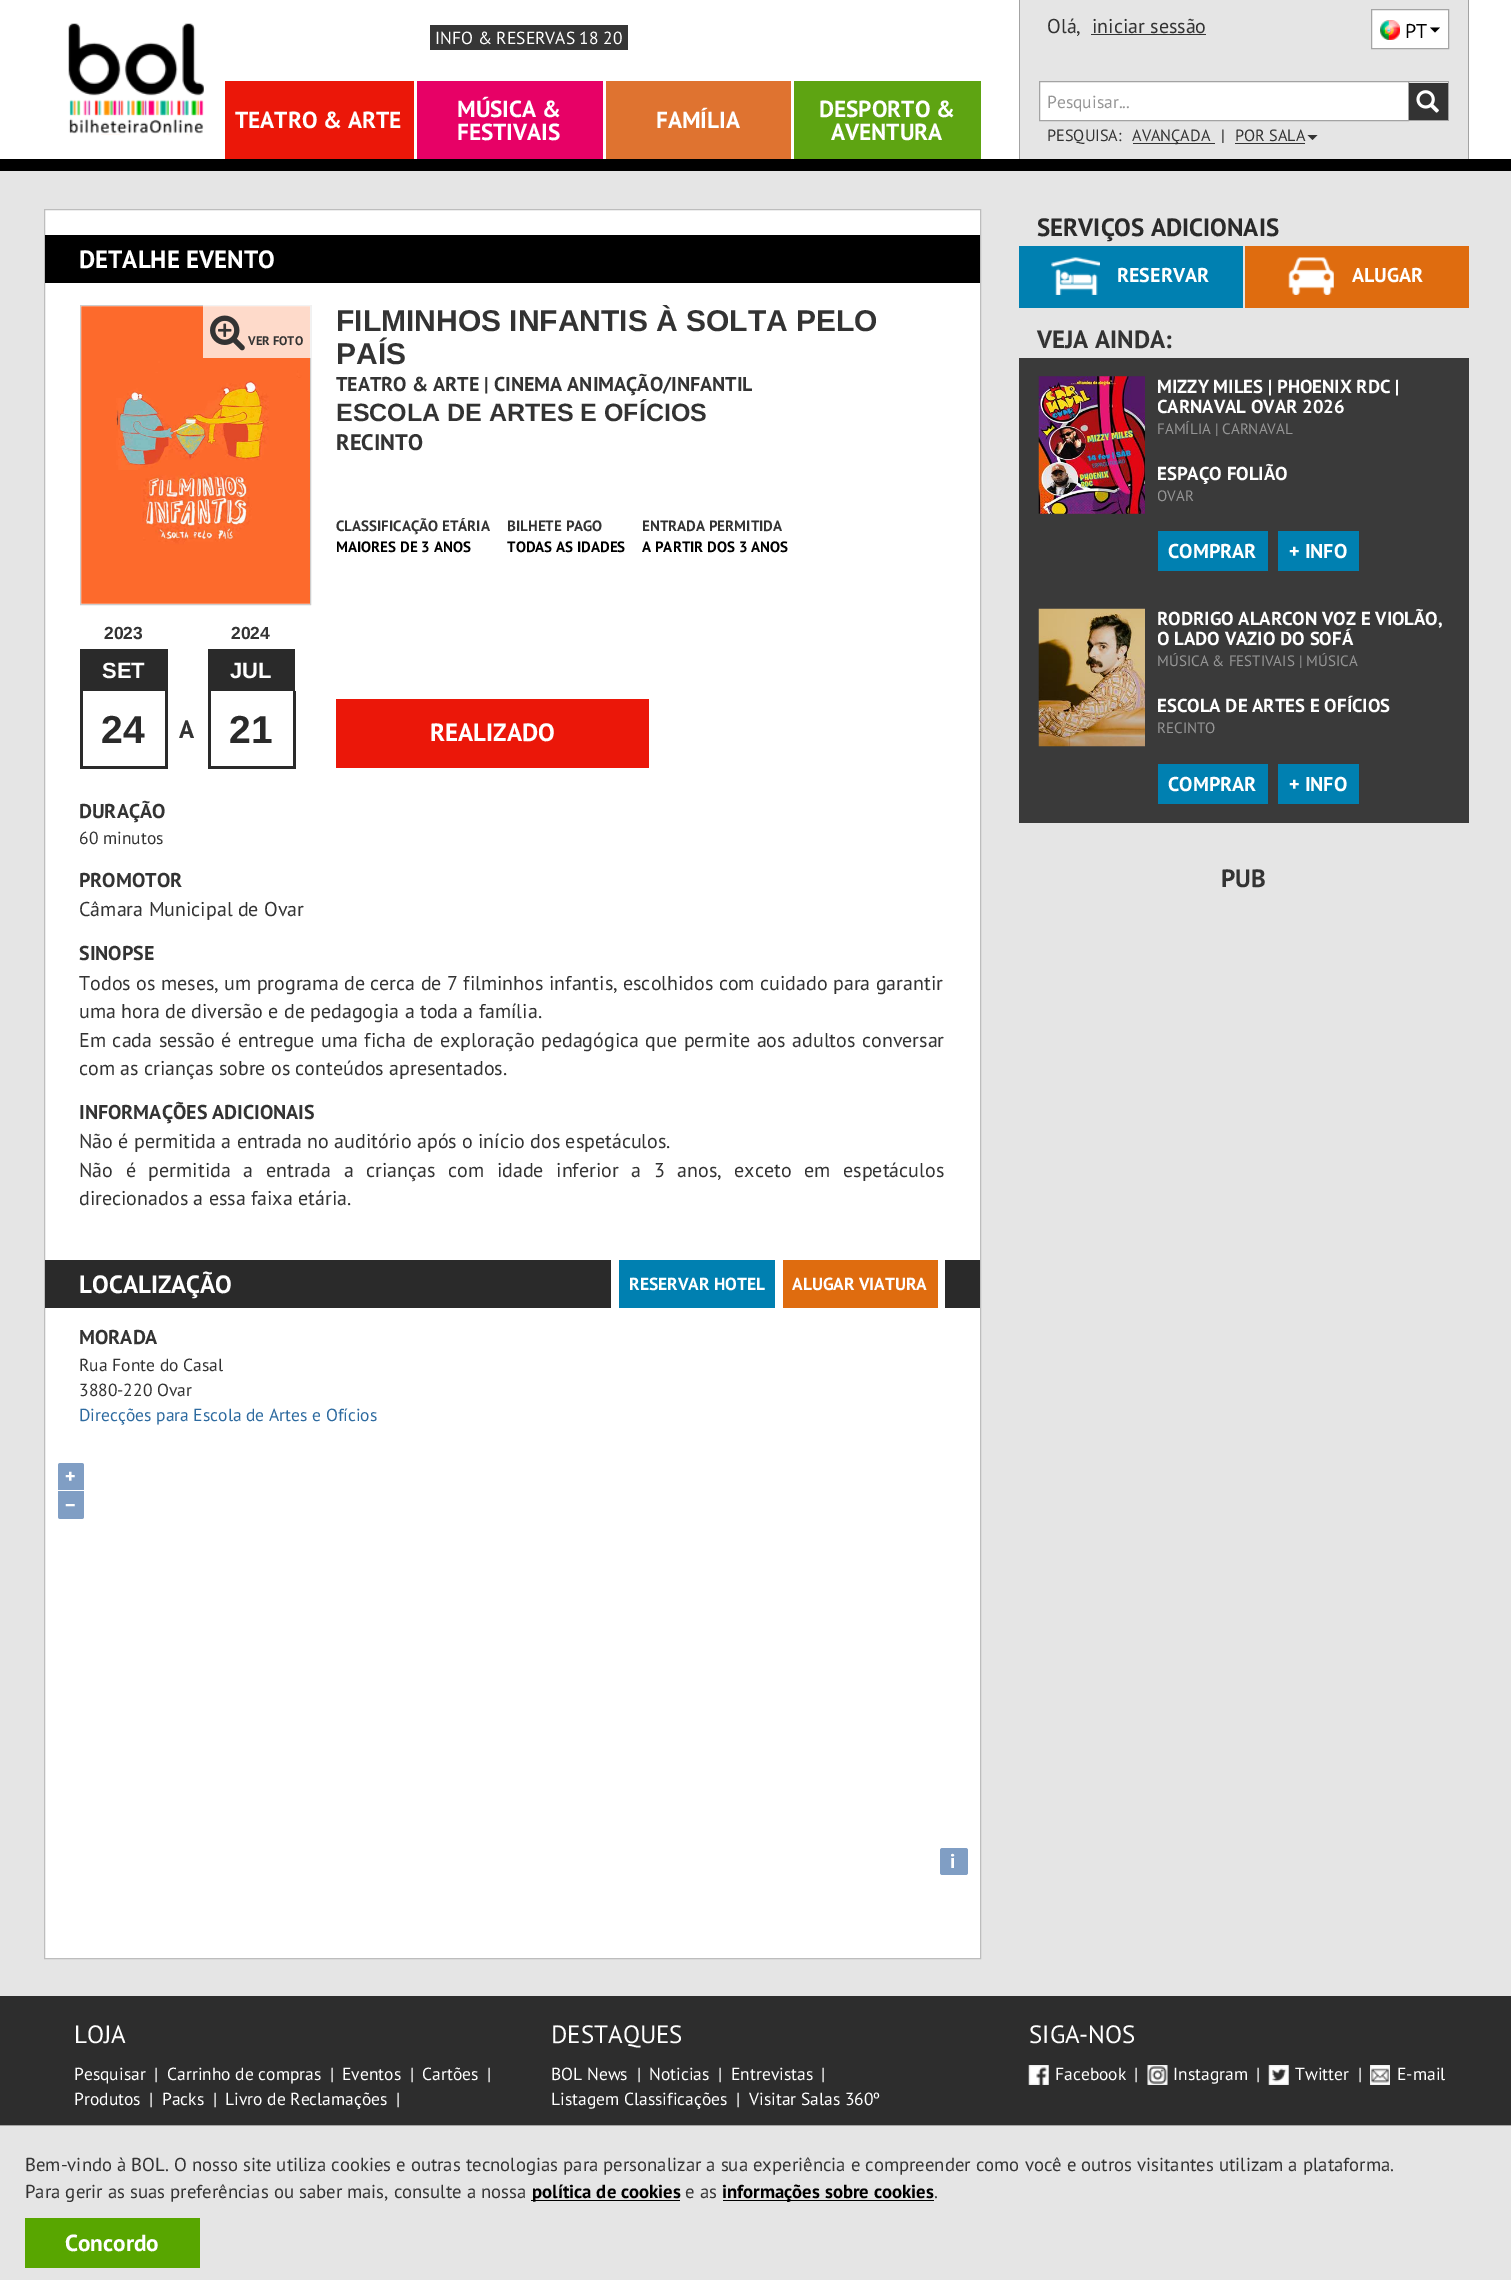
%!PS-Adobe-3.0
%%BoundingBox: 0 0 1511 2280
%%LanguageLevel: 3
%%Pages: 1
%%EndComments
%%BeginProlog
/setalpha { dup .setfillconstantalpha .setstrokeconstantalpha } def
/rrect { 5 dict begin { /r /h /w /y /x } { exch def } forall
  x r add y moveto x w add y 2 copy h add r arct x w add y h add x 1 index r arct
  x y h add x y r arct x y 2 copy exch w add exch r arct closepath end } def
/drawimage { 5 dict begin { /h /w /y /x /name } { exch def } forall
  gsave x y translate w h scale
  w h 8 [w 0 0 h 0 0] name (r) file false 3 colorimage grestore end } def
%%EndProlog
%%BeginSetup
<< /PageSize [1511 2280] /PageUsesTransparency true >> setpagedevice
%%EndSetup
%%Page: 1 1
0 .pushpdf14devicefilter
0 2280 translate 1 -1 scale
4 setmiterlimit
0.898 setgray
0 0 1511 2280 rectfill
1 setgray
0 0 1511 159 rectfill
0 setgray
0 159 1511 12 rectfill
(images/1.raw) 68 23 136 112 drawimage
0.212 setgray
430 25 198 25 rectfill
0.922 0.09 0.035 setrgbcolor
225 81 189 78 rectfill
0.906 0.004 0.4 setrgbcolor
417 81 186 78 rectfill
0.875 0.451 0.188 setrgbcolor
606 81 185 78 rectfill
0.369 0.643 0.071 setrgbcolor
794 81 187 78 rectfill
0.898 setgray
1020 0 448 159 rectfill
0.639 setgray
1468 0 1 159 rectfill
1019 0 1 159 rectfill
0.2 setgray
1091 34 115 1 rectfill
1 setgray
newpath 1371.5 9.5 moveto 1448.5 9.5 lineto 1448.5 48.5 lineto 1371.5 48.5 lineto closepath gsave fill grestore
0.647 setgray
stroke
(images/2.raw) 1380 20 20 20 drawimage
0 setgray
newpath 1430 27.5 moveto 1440 27.5 lineto 1435 32.5 lineto closepath fill
1 setgray
newpath 1039.5 81.5 moveto 1408.5 81.5 lineto 1408.5 120.5 lineto 1039.5 120.5 lineto closepath gsave fill grestore
0.639 setgray
stroke
1409 81 40 1 rectfill
1448 81 1 40 rectfill
1409 120 40 1 rectfill
0.2 setgray
1409 83 39 37 rectfill
(images/3.raw) 1416 90 23 23 drawimage
1133 143 82 1 rectfill
1235 143 70 1 rectfill
newpath 1307.5 135 moveto 1317.5 135 lineto 1312.5 140 lineto closepath fill
1 setgray
newpath 44.5 209.5 moveto 980.5 209.5 lineto 980.5 1958.5 lineto 44.5 1958.5 lineto closepath gsave fill grestore
0.741 setgray
stroke
0 setgray
45 235 935 48 rectfill
0.8 setgray
80.5 305.5 230 299 rectstroke
(images/4.raw) 81 306 229 298 drawimage
0.75 setalpha
1 setgray
203 305 108 53 rectfill
1 setalpha
(images/5.raw) 210 315 35 36 drawimage
0.165 setgray
80 649 88 42 rectfill
165 691 3 78 rectfill
80 766 88 3 rectfill
80 691 3 78 rectfill
208 649 87 42 rectfill
293 691 3 78 rectfill
208 766 87 3 rectfill
208 691 3 78 rectfill
0.922 0.09 0.035 setrgbcolor
336 699 313 69 rectfill
0.165 setgray
45 1260 935 48 rectfill
1 setgray
611 1260 334 48 rectfill
0 0.502 0.694 setrgbcolor
619 1260 156 48 rectfill
0.875 0.424 0.059 setrgbcolor
783 1260 155 48 rectfill
0.502 0.62 0.769 setrgbcolor
newpath 60.5 1463 moveto 81.5 1463 lineto 83 1463 84 1464 84 1465.5 curveto 84 1490 lineto 58 1490 lineto 58 1465.5 lineto 58 1464 59 1463 60.5 1463 curveto closepath fill
newpath 58 1491 moveto 84 1491 lineto 84 1516.5 lineto 84 1518 83 1519 81.5 1519 curveto 60.5 1519 lineto 59 1519 58 1518 58 1516.5 curveto closepath fill
940 1848 28 27 2.5 rrect fill
0 0.502 0.694 setrgbcolor
1019 246 224 62 rectfill
(images/6.raw) 1051 257 49 38 drawimage
0.875 0.424 0.059 setrgbcolor
1245 246 224 62 rectfill
(images/7.raw) 1288 257 46 38 drawimage
0.227 setgray
1019 358 450 465 rectfill
(images/8.raw) 1038 376 107 138 drawimage
0 0.502 0.694 setrgbcolor
1158 531 110 40 rectfill
1278 531 81 40 rectfill
(images/9.raw) 1038 608 107 139 drawimage
1158 764 110 40 rectfill
1278 764 81 40 rectfill
0.176 setgray
0 1996 1511 129 rectfill
(images/10.raw) 1028 2065 21 20 drawimage
(images/11.raw) 1147 2065 21 20 drawimage
(images/12.raw) 1268 2065 21 20 drawimage
(images/13.raw) 1370 2065 20 20 drawimage
0.639 setgray
0 2125 1511 1 rectfill
0 setgray
531 2200 149 1 rectfill
723 2200 211 1 rectfill
0.345 0.651 0 setrgbcolor
25 2218 175 50 rectfill
/PTSans-Regular [17.5 0 0 -17.5 0 0] selectfont
1 setgray
435 44 moveto (INFO & RESERVAS 18 20) show
/PTSans-Bold [23.25 0 0 -23.25 0 0] selectfont
235 128 moveto (TEATRO & ARTE) show
457 117 moveto (MÚSICA &) show
457 140 moveto (FESTIVAIS) show
656 128 moveto (FAMÍLIA) show
819 117 moveto (DESPORTO &) show
831 140 moveto (AVENTURA) show
/PTSans-Regular [20 0 0 -20 0 0] selectfont
0.2 setgray
1047 33 moveto (Olá,) show
1092 33 moveto (iniciar sessão) show
0 setgray
1405 38 moveto (PT) show
/PTSans-Regular [17.5 0 0 -17.5 0 0] selectfont
0.588 setgray
1047 108 moveto (Pesquisar...) show
/PTSans-Regular [16.25 0 0 -16.25 0 0] selectfont
0.2 setgray
1047 141 moveto (PESQUISA:) show
1132 141 moveto (AVANÇADA) show
1221 141 moveto (|) show
1235 141 moveto (POR SALA) show
/PTSans-Bold [25 0 0 -25 0 0] selectfont
1 setgray
79 268 moveto (DETALHE EVENTO) show
/PTSans-Bold [12.5 0 0 -12.5 0 0] selectfont
0.2 setgray
248 345 moveto (VER FOTO) show
gsave
336 305 609 65 rectclip
/LiberationSans-Bold [30 0 0 -30 0 0] selectfont
336 331 moveto (FILMINHOS INFANTIS À SOLTA PELO) show
grestore
/LiberationSans-Bold [30 0 0 -30 0 0] selectfont
336 364 moveto (PAÍS) show
/PTSans-Bold [20 0 0 -20 0 0] selectfont
336 391 moveto (TEATRO & ARTE | CINEMA ANIMAÇÃO/INFANTIL) show
gsave
336 399 609 27 rectclip
/LiberationSans-Bold [25 0 0 -25 0 0] selectfont
336 421 moveto (ESCOLA DE ARTES E OFÍCIOS) show
grestore
/PTSans-Bold [22.5 0 0 -22.5 0 0] selectfont
336 450 moveto (RECINTO) show
/PTSans-Bold [15 0 0 -15 0 0] selectfont
336 531 moveto (CLASSIFICAÇÃO ETÁRIA) show
0 setgray
336 552 moveto (MAIORES DE 3 ANOS) show
0.2 setgray
507 531 moveto (BILHETE PAGO) show
0 setgray
507 552 moveto (TODAS AS IDADES) show
0.2 setgray
642 531 moveto (ENTRADA PERMITIDA) show
0 setgray
642 552 moveto (A PARTIR DOS 3 ANOS) show
/LiberationSans-Bold [17.5 0 0 -17.5 0 0] selectfont
0.2 setgray
104 639 moveto (2023) show
/LiberationSans-Bold [22 0 0 -22 0 0] selectfont
1 setgray
102 678 moveto (SET) show
/LiberationSans-Bold [39 0 0 -39 0 0] selectfont
0.165 setgray
101 743 moveto (24) show
/PTSans-Bold [25 0 0 -25 0 0] selectfont
0.2 setgray
179 738 moveto (A) show
/LiberationSans-Bold [17.5 0 0 -17.5 0 0] selectfont
231 639 moveto (2024) show
/LiberationSans-Bold [22 0 0 -22 0 0] selectfont
1 setgray
230 678 moveto (JUL) show
/LiberationSans-Bold [39 0 0 -39 0 0] selectfont
0.165 setgray
229 743 moveto (21) show
/PTSans-Bold [25 0 0 -25 0 0] selectfont
1 setgray
430 741 moveto (REALIZADO) show
/PTSans-Bold [20 0 0 -20 0 0] selectfont
0.2 setgray
79 818 moveto (DURAÇÃO) show
/PTSans-Regular [17.5 0 0 -17.5 0 0] selectfont
79 844 moveto (60 minutos) show
/PTSans-Bold [20 0 0 -20 0 0] selectfont
79 887 moveto (PROMOTOR) show
/PTSans-Regular [20 0 0 -20 0 0] selectfont
79 916 moveto (Câmara Municipal de Ovar) show
/PTSans-Bold [20 0 0 -20 0 0] selectfont
79 960 moveto (SINOPSE) show
/PTSans-Regular [20 0 0 -20 0 0] selectfont
79 990 moveto 0.1 0 32 (Todos os meses, um programa de cerca de 7 filminhos infantis, escolhidos com cuidado para garantir) widthshow
79 1018 moveto (uma hora de diversão e de pedagogia a toda a família.) show
79 1047 moveto 1.2 0 32 (Em cada sessão é entregue uma ficha de exploração pedagógica que permite aos adultos conversar) widthshow
79 1075 moveto (com as crianças sobre os conteúdos apresentados.) show
/PTSans-Bold [20 0 0 -20 0 0] selectfont
79 1119 moveto (INFORMAÇÕES ADICIONAIS) show
/PTSans-Regular [20 0 0 -20 0 0] selectfont
79 1148 moveto (Não é permitida a entrada no auditório após o início dos espetáculos.) show
79 1177 moveto 7.25 0 32 (Não é permitida a entrada a crianças com idade inferior a 3 anos, exceto em espetáculos) widthshow
79 1205 moveto (direcionados a essa faixa etária.) show
/PTSans-Bold [25 0 0 -25 0 0] selectfont
1 setgray
79 1293 moveto (LOCALIZAÇÃO) show
/PTSans-Bold [17.5 0 0 -17.5 0 0] selectfont
629 1290 moveto (RESERVAR HOTEL) show
792 1290 moveto (ALUGAR VIATURA) show
/PTSans-Bold [20 0 0 -20 0 0] selectfont
0.2 setgray
79 1344 moveto (MORADA) show
/PTSans-Regular [17.5 0 0 -17.5 0 0] selectfont
79 1371 moveto (Rua Fonte do Casal) show
79 1396 moveto (3880-220 Ovar) show
0.176 0.416 0.624 setrgbcolor
79 1421 moveto (Direcções para Escola de Artes e Ofícios) show
/PTSans-Bold [20 0 0 -20 0 0] selectfont
1 setgray
65 1483 moveto (+) show
65 1512 moveto (−) show
950 1868 moveto (i) show
/PTSans-Bold [25 0 0 -25 0 0] selectfont
0.165 setgray
1037 236 moveto (SERVIÇOS ADICIONAIS) show
/PTSans-Bold [20 0 0 -20 0 0] selectfont
1 setgray
1117 282 moveto (RESERVAR) show
1352 282 moveto (ALUGAR) show
/PTSans-Bold [25 0 0 -25 0 0] selectfont
0.2 setgray
1037 348 moveto (VEJA AINDA:) show
/PTSans-Bold [18.75 0 0 -18.75 0 0] selectfont
1 setgray
1157 393 moveto (MIZZY MILES | PHOENIX RDC |) show
gsave
1158 376 291 195 rectclip
1157 413 moveto (CARNAVAL OVAR 2026) show
grestore
/PTSans-Regular [15 0 0 -15 0 0] selectfont
0.588 setgray
1157 434 moveto (FAMÍLIA | CARNAVAL) show
/PTSans-Bold [18.75 0 0 -18.75 0 0] selectfont
1 setgray
1157 480 moveto (ESPAÇO FOLIÃO) show
gsave
1158 376 291 195 rectclip
/PTSans-Regular [15 0 0 -15 0 0] selectfont
0.588 setgray
1157 501 moveto (OVAR) show
grestore
/PTSans-Bold [20 0 0 -20 0 0] selectfont
1168 558 moveto (COMPRAR) show
1289 558 moveto (+ INFO) show
/PTSans-Bold [18.75 0 0 -18.75 0 0] selectfont
1157 625 moveto (RODRIGO ALARCON VOZ E VIOLÃO,) show
gsave
1158 609 291 195 rectclip
1157 645 moveto (O LADO VAZIO DO SOFÁ) show
grestore
/PTSans-Regular [15 0 0 -15 0 0] selectfont
0.588 setgray
1157 666 moveto (MÚSICA & FESTIVAIS | MÚSICA) show
/PTSans-Bold [18.75 0 0 -18.75 0 0] selectfont
1 setgray
1157 712 moveto (ESCOLA DE ARTES E OFÍCIOS) show
/PTSans-Regular [15 0 0 -15 0 0] selectfont
0.588 setgray
1157 733 moveto (RECINTO) show
/PTSans-Bold [20 0 0 -20 0 0] selectfont
1 setgray
1168 791 moveto (COMPRAR) show
1289 791 moveto (+ INFO) show
/PTSans-Bold [25 0 0 -25 0 0] selectfont
0.2 setgray
1221 887 moveto (PUB) show
/PTSans-Regular [25 0 0 -25 0 0] selectfont
1 setgray
74 2043 moveto (LOJA) show
/PTSans-Regular [17.5 0 0 -17.5 0 0] selectfont
74 2080 moveto (Pesquisar) show
154 2080 moveto (|) show
167 2080 moveto (Carrinho de compras) show
330 2080 moveto (|) show
342 2080 moveto (Eventos) show
410 2080 moveto (|) show
422 2080 moveto (Cartões) show
487 2080 moveto (|) show
74 2105 moveto (Produtos) show
149 2105 moveto (|) show
162 2105 moveto (Packs) show
213 2105 moveto (|) show
225 2105 moveto (Livro de Reclamações) show
396 2105 moveto (|) show
/PTSans-Regular [25 0 0 -25 0 0] selectfont
551 2043 moveto (DESTAQUES) show
/PTSans-Regular [17.5 0 0 -17.5 0 0] selectfont
551 2080 moveto (BOL News) show
637 2080 moveto (|) show
649 2080 moveto (Noticias) show
718 2080 moveto (|) show
731 2080 moveto (Entrevistas) show
821 2080 moveto (|) show
551 2105 moveto (Listagem Classificações) show
736 2105 moveto (|) show
749 2105 moveto (Visitar Salas 360º) show
/PTSans-Regular [25 0 0 -25 0 0] selectfont
1029 2043 moveto (SIGA-NOS) show
/PTSans-Regular [17.5 0 0 -17.5 0 0] selectfont
1055 2080 moveto (Facebook) show
1134 2080 moveto (|) show
1173 2080 moveto (Instagram) show
1256 2080 moveto (|) show
1295 2080 moveto (Twitter) show
1358 2080 moveto (|) show
1397 2080 moveto (E-mail) show
/PTSans-Regular [18.75 0 0 -18.75 0 0] selectfont
0.2 setgray
25 2171 moveto (Bem-vindo à BOL. O nosso site utiliza cookies e outras tecnologias para personalizar a sua experiência e compreender como você e outros visitantes utilizam a plataforma.) show
25 2198 moveto (Para gerir as suas preferências ou saber mais, consulte a nossa) show
/PTSans-Bold [18.75 0 0 -18.75 0 0] selectfont
0 setgray
532 2198 moveto (política de cookies) show
/PTSans-Regular [18.75 0 0 -18.75 0 0] selectfont
0.2 setgray
685 2198 moveto (e as) show
/PTSans-Bold [18.75 0 0 -18.75 0 0] selectfont
0 setgray
722 2198 moveto (informações sobre cookies) show
/PTSans-Regular [18.75 0 0 -18.75 0 0] selectfont
0.2 setgray
934 2198 moveto (.) show
/PTSans-Bold [23.25 0 0 -23.25 0 0] selectfont
1 setgray
65 2251 moveto (Concordo) show
.poppdf14devicefilter showpage
%%EOF
